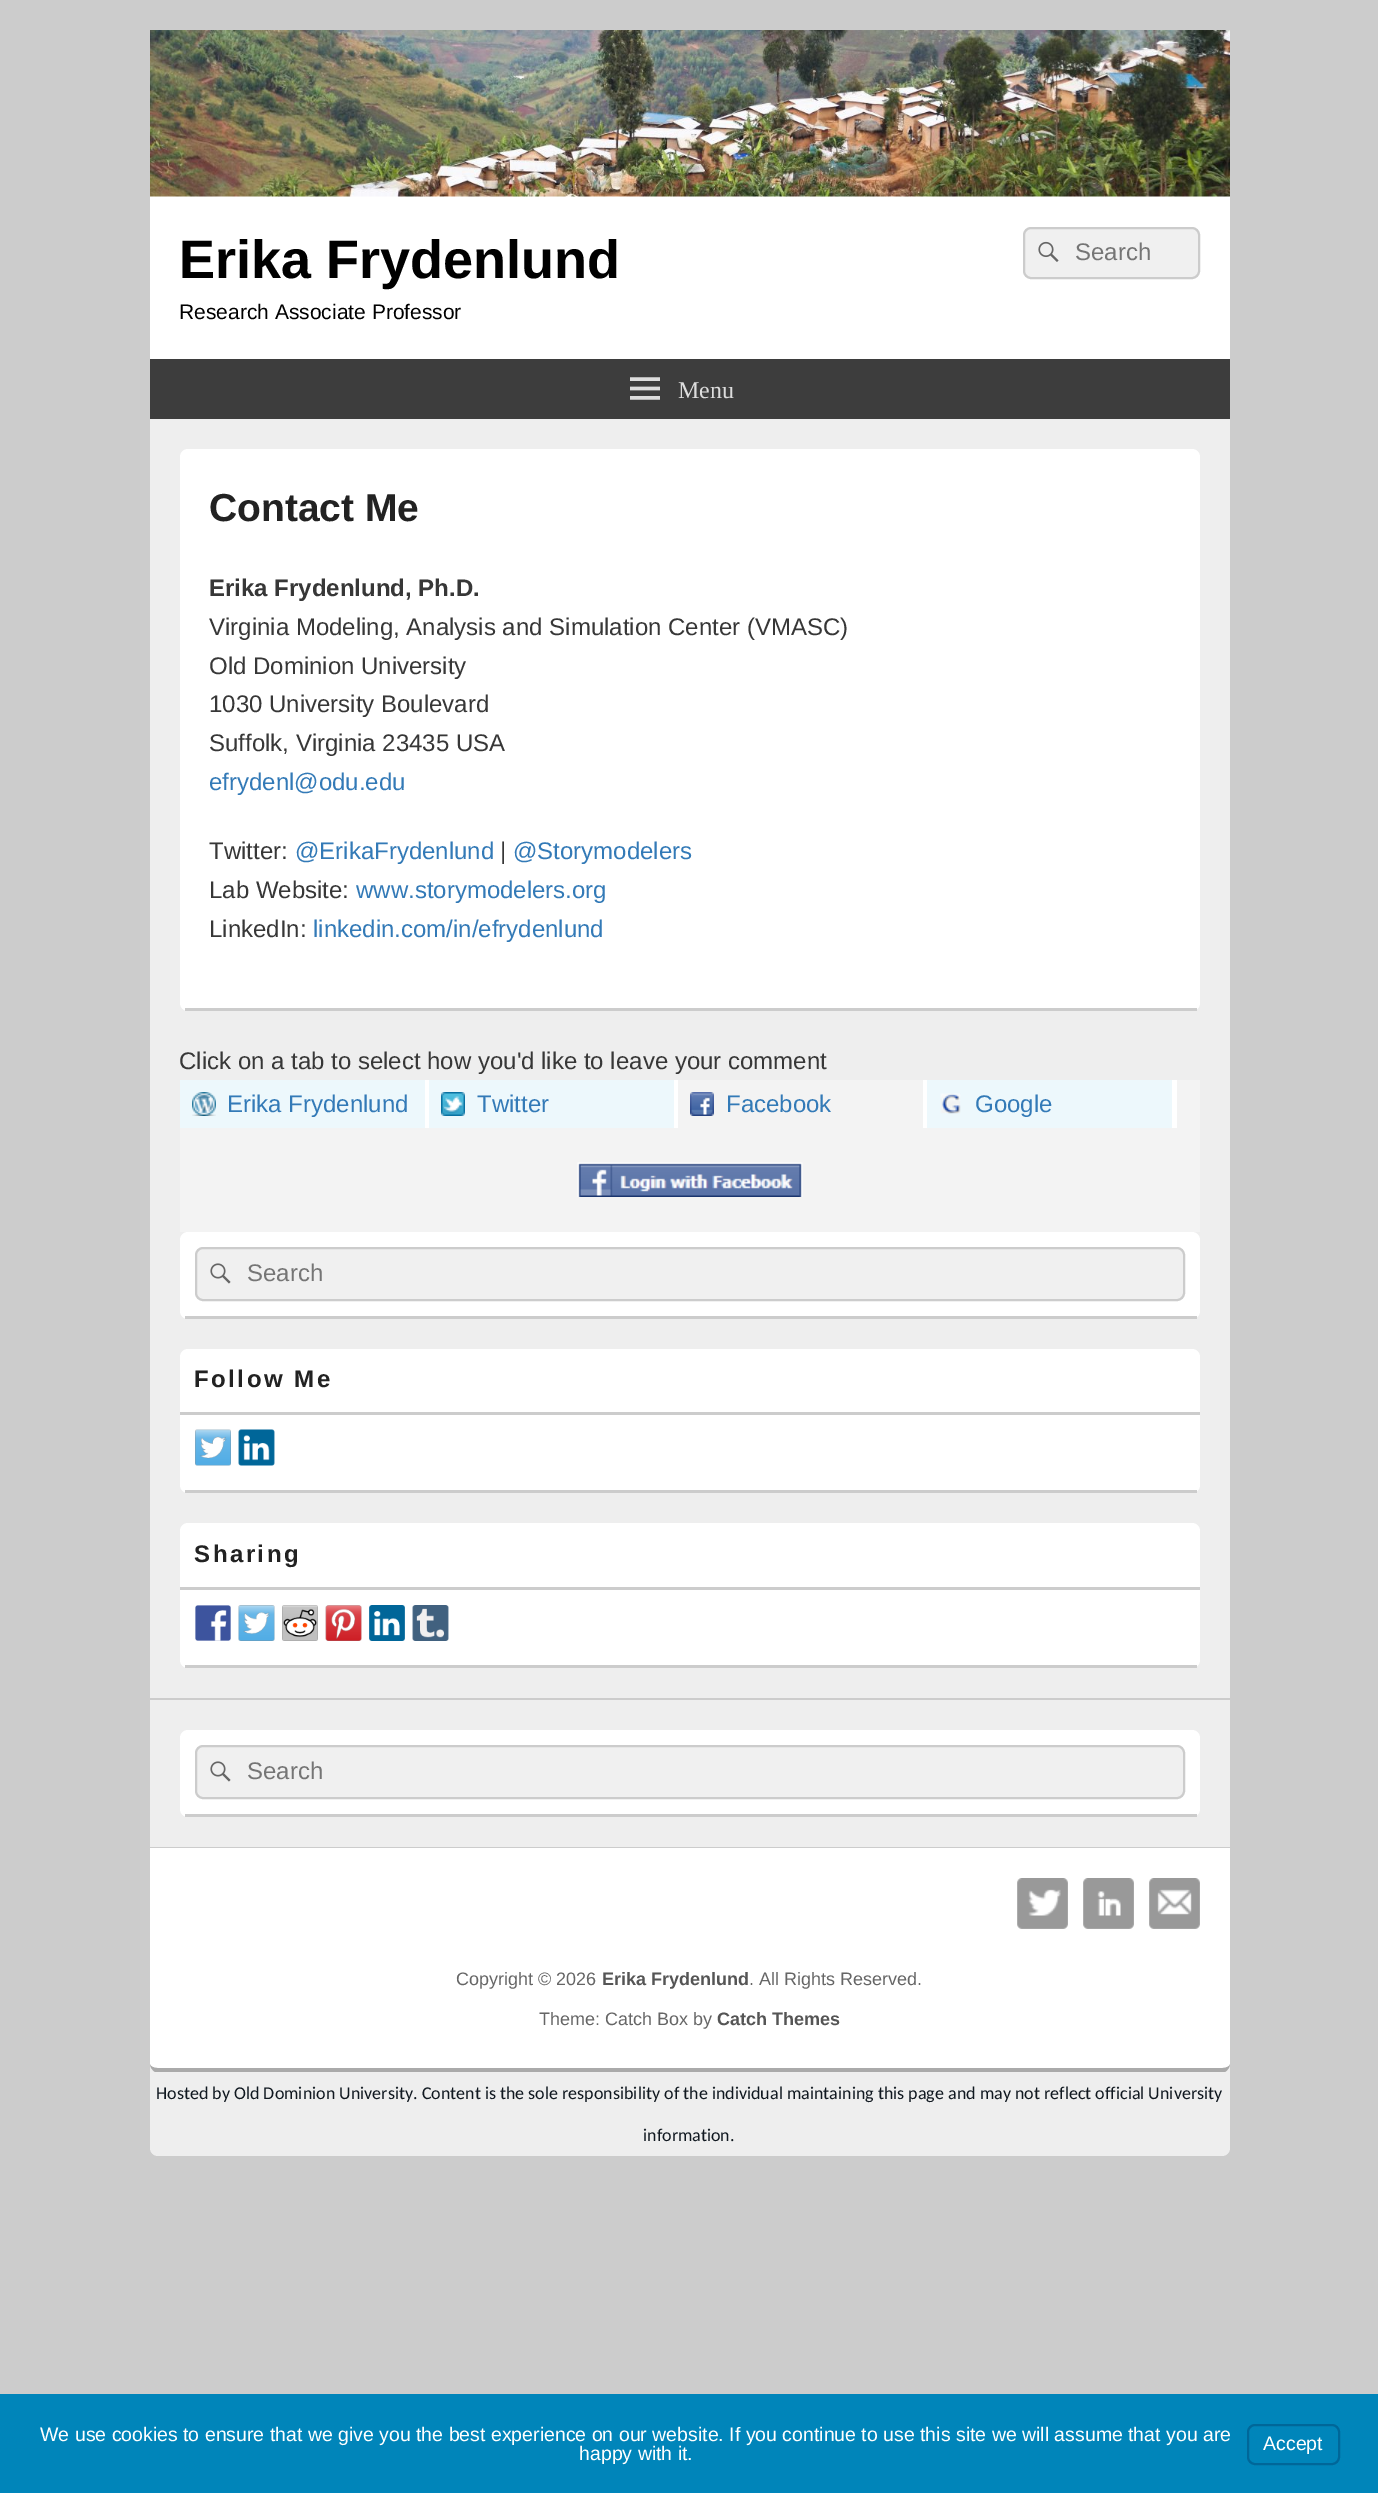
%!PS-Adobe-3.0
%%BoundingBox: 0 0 1378 2493
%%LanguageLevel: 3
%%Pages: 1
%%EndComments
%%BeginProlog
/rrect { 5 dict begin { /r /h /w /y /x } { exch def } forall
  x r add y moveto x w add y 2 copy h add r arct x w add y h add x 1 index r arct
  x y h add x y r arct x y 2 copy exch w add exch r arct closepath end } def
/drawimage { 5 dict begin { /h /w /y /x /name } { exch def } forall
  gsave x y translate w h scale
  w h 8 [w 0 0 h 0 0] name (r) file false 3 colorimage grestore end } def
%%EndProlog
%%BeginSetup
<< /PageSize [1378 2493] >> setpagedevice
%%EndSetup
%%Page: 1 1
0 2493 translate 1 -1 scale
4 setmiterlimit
0.8 setgray
0 0 1378 2493 rectfill
0.933 setgray
150 30 1080 2126 8 rrect fill
1 setgray
150 196 1080 163 rectfill
(images/1.raw) 150 30 1080 167 drawimage
0.941 setgray
1024 228 175 50 7 rrect gsave fill grestore
0.8 setgray
2 setlinewidth
stroke
(images/2.raw) 1038 241 21 21 drawimage
0.239 setgray
150 359 1080 60 rectfill
(images/3.raw) 630 377 30 23 drawimage
1 setgray
180 449 1020 562 8 rrect fill
0.8 setgray
185 1008 1012 3 rectfill
0.953 setgray
1177 1080 23 48 rectfill
0.929 0.973 0.988 setrgbcolor
180 1080 245 48 rectfill
1 setgray
425 1080 4 48 rectfill
(images/4.raw) 192 1092 24 24 drawimage
0.929 0.973 0.988 setrgbcolor
429 1080 245 48 rectfill
1 setgray
674 1080 4 48 rectfill
(images/5.raw) 441 1092 24 24 drawimage
0.953 setgray
678 1080 245 48 rectfill
1 setgray
923 1080 4 48 rectfill
(images/6.raw) 690 1092 24 24 drawimage
0.929 0.973 0.988 setrgbcolor
927 1080 245 48 rectfill
1 setgray
1172 1080 5 48 rectfill
(images/7.raw) 940 1093 21 21 drawimage
0.953 setgray
180 1128 1020 104 rectfill
(images/8.raw) 577 1162 226 35 drawimage
1 setgray
180 1232 1020 87 8 rrect fill
0.8 setgray
185 1316 1012 3 rectfill
0.941 setgray
196 1248 988 52 7 rrect gsave fill grestore
0.8 setgray
stroke
(images/9.raw) 210 1263 21 21 drawimage
1 setgray
180 1349 1020 144 8 rrect fill
0.8 setgray
185 1490 1012 3 rectfill
180 1412 1020 3 rectfill
(images/10.raw) 195 1429 36 37 drawimage
(images/11.raw) 238 1429 37 37 drawimage
1 setgray
180 1523 1020 145 8 rrect fill
0.8 setgray
185 1665 1012 3 rectfill
180 1587 1020 3 rectfill
(images/12.raw) 195 1605 36 36 drawimage
(images/13.raw) 238 1605 37 36 drawimage
(images/14.raw) 282 1605 36 36 drawimage
(images/15.raw) 325 1605 37 36 drawimage
(images/16.raw) 369 1605 36 36 drawimage
(images/17.raw) 412 1605 37 36 drawimage
150 1698 1080 2 rectfill
1 setgray
180 1730 1020 87 8 rrect fill
0.8 setgray
185 1814 1012 3 rectfill
0.941 setgray
196 1746 988 52 7 rrect gsave fill grestore
0.8 setgray
stroke
(images/9.raw) 210 1761 21 21 drawimage
1 setgray
newpath 150 1847 moveto 1230 1847 lineto 1230 2064 lineto 1230 2068.5 1226.5 2072 1222 2072 curveto 158 2072 lineto 153.5 2072 150 2068.5 150 2064 curveto closepath fill
0.8 setgray
150 1847 1080 1 rectfill
0.667 setgray
newpath 155 2072 moveto 152 2070 150 2067 150 2064 curveto 150 2066 153 2068 158 2068 curveto 1222 2068 lineto 1227 2068 1230 2066 1230 2064 curveto 1230 2067 1228 2070 1225 2072 curveto closepath fill
(images/18.raw) 1017 1878 51 51 drawimage
(images/19.raw) 1083 1878 51 51 drawimage
(images/20.raw) 1149 1878 51 51 drawimage
0 0.522 0.729 setrgbcolor
0 2394 1378 99 rectfill
0 0.404 0.6 setrgbcolor
1248 2425 91 39 7 rrect stroke
/LiberationSans-Bold [54 0 0 -54 0 0] selectfont
0 setgray
179 278 moveto (Erika Frydenlund) show
/LiberationSans-Regular [21 0 0 -21 0 0] selectfont
179 319 moveto (Research Associate Professor) show
/LiberationSans-Regular [24 0 0 -24 0 0] selectfont
0.459 setgray
1075 260 moveto (Search) show
/LiberationSerif-Regular [24 0 0 -24 0 0] selectfont
0.867 setgray
678 398 moveto (Menu) show
/LiberationSans-Bold [39 0 0 -39 0 0] selectfont
0.133 setgray
209 521 moveto (Contact Me) show
/LiberationSans-Bold [24 0 0 -24 0 0] selectfont
0.216 setgray
209 596 moveto (Erika Frydenlund, Ph.D.) show
/LiberationSans-Regular [24 0 0 -24 0 0] selectfont
209 635 moveto (Virginia Modeling, Analysis and Simulation Center \(VMASC\)) show
209 674 moveto (Old Dominion University) show
209 712 moveto (1030 University Boulevard) show
209 751 moveto (Suffolk, Virginia 23435 USA) show
0.2 0.478 0.718 setrgbcolor
209 790 moveto (efrydenl@odu.edu) show
0.216 setgray
209 859 moveto (Twitter:) show
0.2 0.478 0.718 setrgbcolor
295 859 moveto (@ErikaFrydenlund) show
0.216 setgray
500 859 moveto (|) show
0.2 0.478 0.718 setrgbcolor
513 859 moveto (@Storymodelers) show
0.216 setgray
209 898 moveto (Lab Website:) show
0.2 0.478 0.718 setrgbcolor
356 898 moveto (www.storymodelers.org) show
0.216 setgray
209 937 moveto (LinkedIn:) show
0.2 0.478 0.718 setrgbcolor
313 937 moveto (linkedin.com/in/efrydenlund) show
0.216 setgray
179 1069 moveto (Click on a tab to select how you'd like to leave your comment) show
0.2 0.478 0.718 setrgbcolor
227 1112 moveto (Erika Frydenlund) show
477 1112 moveto (Twitter) show
726 1112 moveto (Facebook) show
975 1112 moveto (Google) show
0.459 setgray
247 1281 moveto (Search) show
/LiberationSans-Bold [24 0 0 -24 0 0] selectfont
0.133 setgray
194 1387 moveto 2.5 0 (Follow Me) ashow
194 1562 moveto 2.5 0 (Sharing) ashow
/LiberationSans-Regular [24 0 0 -24 0 0] selectfont
0.459 setgray
247 1779 moveto (Search) show
/LiberationSans-Regular [18 0 0 -18 0 0] selectfont
0.4 setgray
456 1985 moveto (Copyright © 2026) show
/LiberationSans-Bold [18 0 0 -18 0 0] selectfont
0.333 setgray
602 1985 moveto (Erika Frydenlund) show
/LiberationSans-Regular [18 0 0 -18 0 0] selectfont
0.4 setgray
749 1985 moveto (. All Rights Reserved.) show
539 2025 moveto (Theme: Catch Box by) show
/LiberationSans-Bold [18 0 0 -18 0 0] selectfont
0.333 setgray
717 2025 moveto (Catch Themes) show
/Carlito-Regular [18 0 0 -18 0 0] selectfont
0.063 0.094 0.125 setrgbcolor
156 2099 moveto (Hosted by Old Dominion University. Content is the sole responsibility of the individual maintaining this page and may not reflect official University) show
643 2141 moveto (information.) show
/LiberationSans-Regular [19.5 0 0 -19.5 0 0] selectfont
1 setgray
40 2441 moveto (We use cookies to ensure that we give you the best experience on our website. If you continue to use this site we will assume that you are) show
579 2460 moveto (happy with it.) show
1263 2450 moveto (Accept) show
showpage
%%EOF
